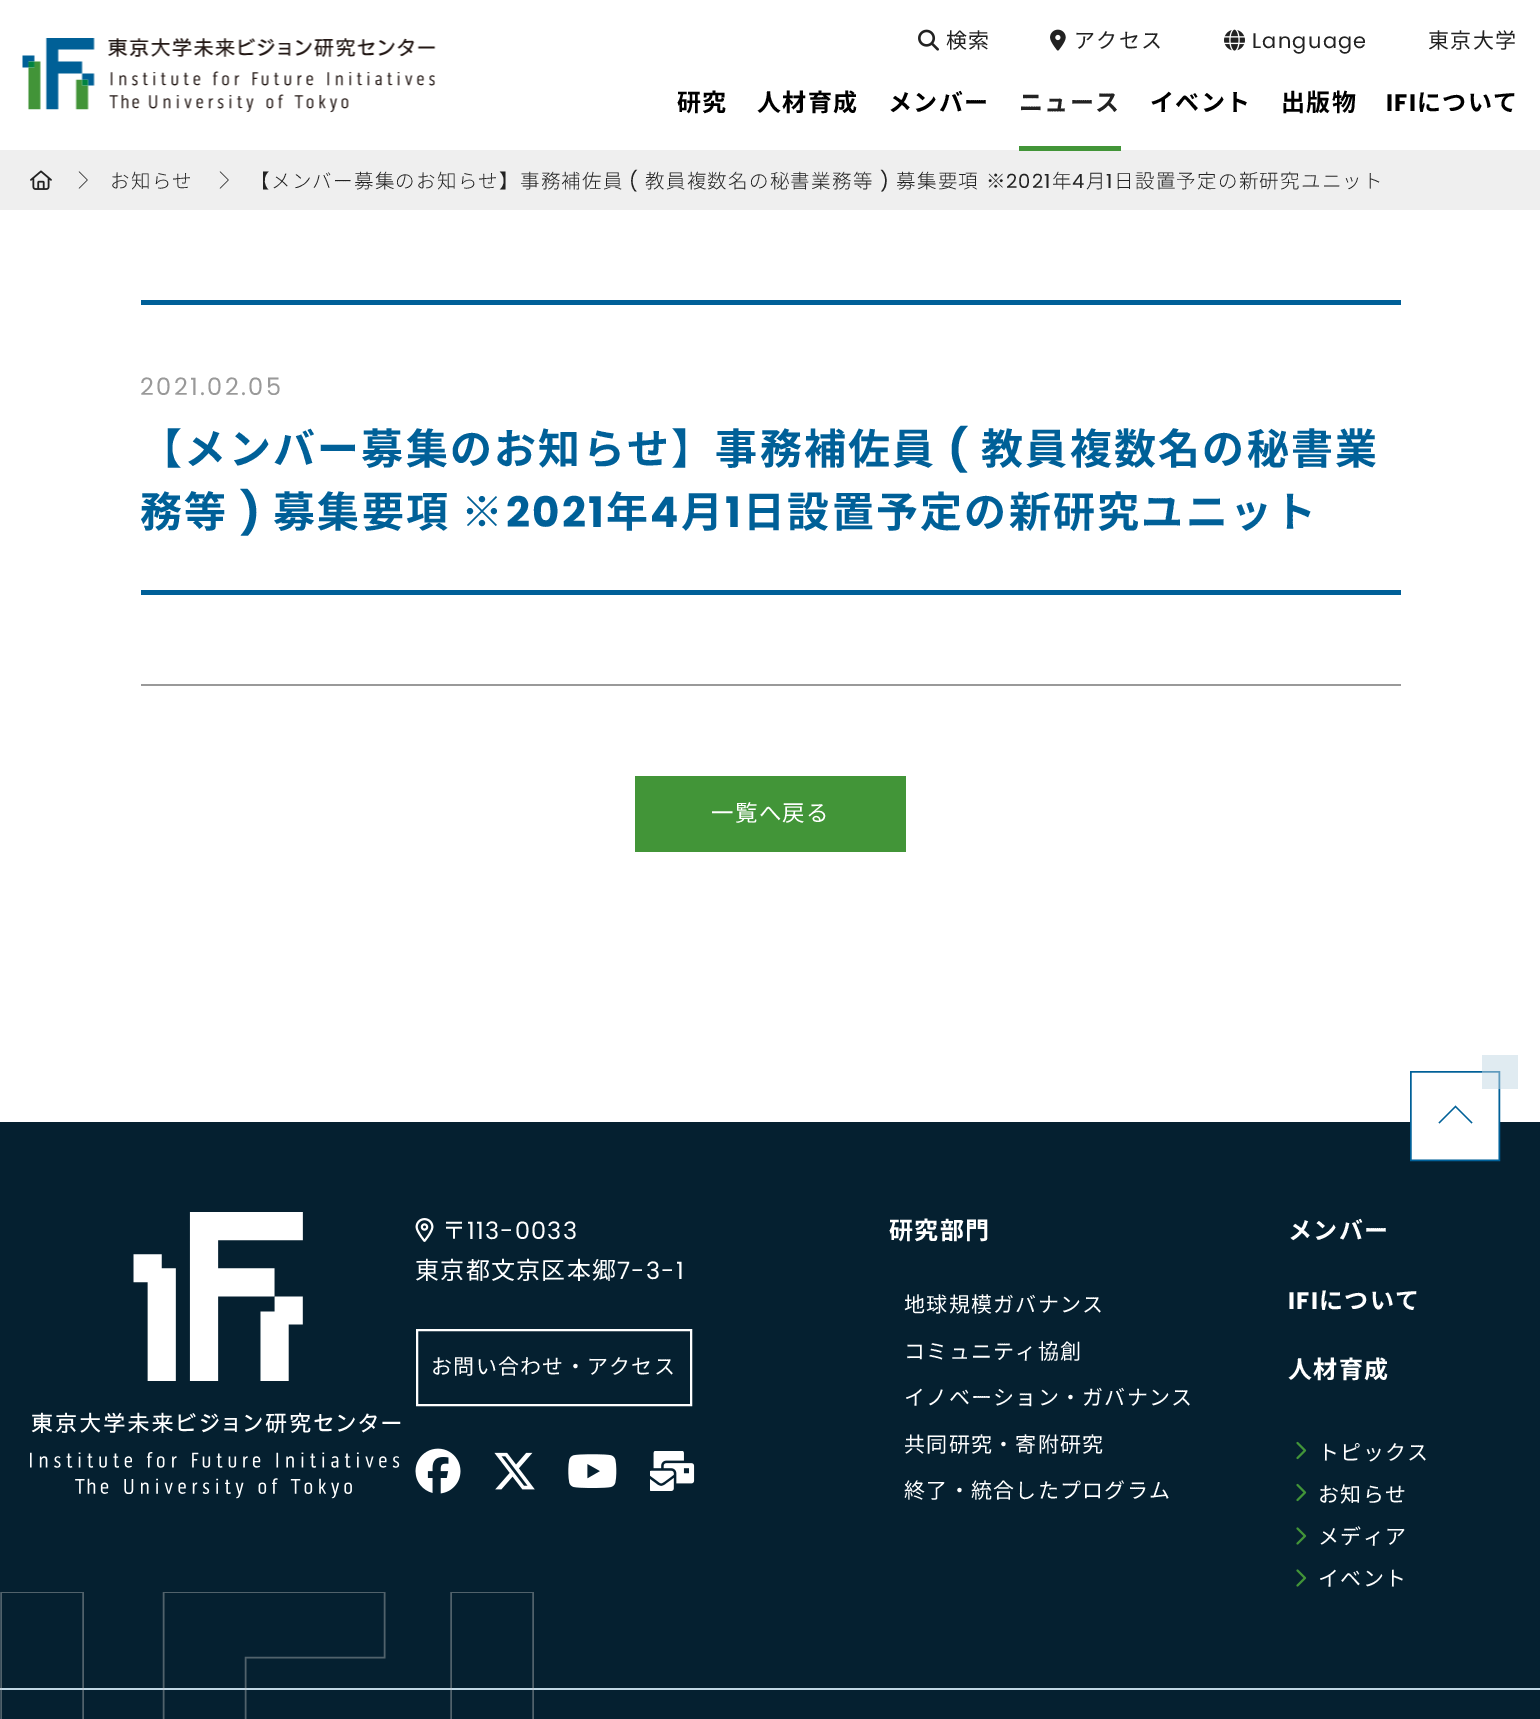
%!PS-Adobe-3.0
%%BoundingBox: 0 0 1540 1719
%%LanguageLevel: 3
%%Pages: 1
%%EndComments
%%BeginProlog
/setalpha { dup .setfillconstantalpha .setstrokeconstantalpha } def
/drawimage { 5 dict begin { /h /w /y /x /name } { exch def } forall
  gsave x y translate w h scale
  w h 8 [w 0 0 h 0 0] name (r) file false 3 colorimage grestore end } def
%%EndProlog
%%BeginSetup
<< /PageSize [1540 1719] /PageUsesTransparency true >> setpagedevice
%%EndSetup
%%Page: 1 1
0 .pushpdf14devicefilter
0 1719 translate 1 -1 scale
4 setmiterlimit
1 setgray
0 0 1540 1719 rectfill
(images/1.raw) 22 38 414 75 drawimage
(images/2.raw) 918 29 21 22 drawimage
(images/3.raw) 1050 29 16 22 drawimage
(images/4.raw) 1224 29 21 22 drawimage
0.937 setgray
0 150 1540 60 rectfill
0.259 0.584 0.22 setrgbcolor
1019 146 102 5 rectfill
(images/5.raw) 30 170 22 20 drawimage
(images/6.raw) 78 171 10 18 drawimage
(images/6.raw) 219 171 10 18 drawimage
0 0.376 0.596 setrgbcolor
141 300 1260 5 rectfill
141 590 1260 5 rectfill
0.6 setgray
141 684 1260 2 rectfill
0.259 0.584 0.22 setrgbcolor
635 776 271 76 rectfill
0.02 0.125 0.188 setrgbcolor
0 1122 1540 597 rectfill
1 setgray
1411 1122 88 38 rectfill
0 0.376 0.596 setrgbcolor
1.5 setlinewidth
1410.75 1071.75 88.5 88.5 rectstroke
0.5 setalpha
0.757 0.843 0.894 setrgbcolor
1482 1055 36 34 rectfill
1 setalpha
0 0.376 0.596 setrgbcolor
newpath 1439.5 1123.5 moveto 1438.5 1122.5 lineto 1455.5 1105.5 lineto 1472.5 1122.5 lineto 1471.5 1123.5 lineto 1455.5 1107.5 lineto closepath fill
(images/7.raw) 30 1212 371 287 drawimage
(images/8.raw) 415 1218 19 24 drawimage
1 setgray
2 setlinewidth
417 1330 274 75 rectstroke
(images/9.raw) 415 1448 46 46 drawimage
(images/10.raw) 494 1452 41 38 drawimage
(images/11.raw) 568 1454 49 34 drawimage
(images/12.raw) 650 1451 45 40 drawimage
(images/13.raw) 1296 1441 11 19 drawimage
(images/13.raw) 1296 1483 11 19 drawimage
(images/14.raw) 1296 1527 11 18 drawimage
(images/14.raw) 1296 1569 11 18 drawimage
0.757 0.843 0.894 setrgbcolor
0 1688 1540 2 rectfill
gsave
0 1592 534 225 rectclip
0.4 setalpha
0.769 setgray
1.5 setlinewidth
newpath 83 1592 moveto 83 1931.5 lineto 1 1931.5 lineto 1 1592 lineto closepath 384.5 1592 moveto 384.5 1657.5 lineto 245.5 1657.5 lineto 245.5 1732 lineto 353 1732 lineto 353 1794 lineto 245.5 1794 lineto 245.5 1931.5 lineto 163.5 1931.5 lineto 163.5 1592 lineto closepath 533 1592 moveto 533 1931.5 lineto 451 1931.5 lineto 451 1592 lineto closepath stroke
grestore
/NotoSansJP-Regular [21 0 0 -21 0 0] selectfont
0.133 setgray
946 48 moveto 1.25 0 (検索) ashow
1074 48 moveto 1.25 0 (アクセス) ashow
/Poppins-Regular [21 0 0 -21 0 0] selectfont
1252 48 moveto 1.25 0 (Language) ashow
/NotoSansJP-Regular [21 0 0 -21 0 0] selectfont
1428 48 moveto 1.25 0 (東京大学) ashow
/NotoSansJP-Bold [24 0 0 -24 0 0] selectfont
0 setgray
677 111 moveto 1.25 0 (研究) ashow
757 111 moveto 1.25 0 (人材育成) ashow
888 111 moveto 1.25 0 (メンバー) ashow
0.133 setgray
1019 111 moveto 1.25 0 (ニュース) ashow
0 setgray
1150 111 moveto 1.25 0 (イベント) ashow
1281 111 moveto 1.25 0 (出版物) ashow
/Poppins-Bold [24 0 0 -24 0 0] selectfont
1386 111 moveto 1.25 0 (IFI) ashow
/NotoSansJP-Bold [24 0 0 -24 0 0] selectfont
1417 111 moveto 1.25 0 (について) ashow
/NotoSansJP-Light [19.5 0 0 -19.5 0 0] selectfont
0.133 setgray
110 188 moveto 1.25 0 (お知らせ) ashow
250 188 moveto 1.25 0 (【メンバー募集のお知らせ】事務補佐員) ashow
/Poppins-Regular [19.5 0 0 -19.5 0 0] selectfont
629 188 moveto 1.25 0 (\() ashow
/NotoSansJP-Light [19.5 0 0 -19.5 0 0] selectfont
645 188 moveto 1.25 0 (教員複数名の秘書業務等) ashow
/Poppins-Regular [19.5 0 0 -19.5 0 0] selectfont
880 188 moveto 1.25 0 (\)) ashow
/NotoSansJP-Light [19.5 0 0 -19.5 0 0] selectfont
896 188 moveto 1 0 32 1.25 0 (募集要項 ※) awidthshow
/Poppins-Regular [19.5 0 0 -19.5 0 0] selectfont
1006 188 moveto 1.25 0 (2021) ashow
/NotoSansJP-Light [19.5 0 0 -19.5 0 0] selectfont
1052 188 moveto 1.25 0 (年) ashow
/Poppins-Regular [19.5 0 0 -19.5 0 0] selectfont
1072 188 moveto 1.25 0 (4) ashow
/NotoSansJP-Light [19.5 0 0 -19.5 0 0] selectfont
1086 188 moveto 1.25 0 (月) ashow
/Poppins-Regular [19.5 0 0 -19.5 0 0] selectfont
1106 188 moveto 1.25 0 (1) ashow
/NotoSansJP-Light [19.5 0 0 -19.5 0 0] selectfont
1114 188 moveto 1.25 0 (日設置予定の新研究ユニット) ashow
/Poppins-Regular [24 0 0 -24 0 0] selectfont
0.6 setgray
140 395 moveto 2.4 0 (2021.02.05) ashow
/NotoSansJP-Bold [42 0 0 -42 0 0] selectfont
0 0.376 0.596 setrgbcolor
140 464 moveto 2.25 0 (【メンバー募集のお知らせ】事務補佐員) ashow
/Poppins-Bold [42 0 0 -42 0 0] selectfont
948 464 moveto 2.25 0 (\() ashow
/NotoSansJP-Bold [42 0 0 -42 0 0] selectfont
981 464 moveto 2.25 0 (教員複数名の秘書業) ashow
140 527 moveto 2.25 0 (務等) ashow
/Poppins-Bold [42 0 0 -42 0 0] selectfont
240 527 moveto 2.25 0 (\)) ashow
/NotoSansJP-Bold [42 0 0 -42 0 0] selectfont
273 527 moveto -1 0 32 2.25 0 (募集要項 ※) awidthshow
/Poppins-Bold [42 0 0 -42 0 0] selectfont
506 527 moveto 2.25 0 (2021) ashow
/NotoSansJP-Bold [42 0 0 -42 0 0] selectfont
606 527 moveto 2.25 0 (年) ashow
/Poppins-Bold [42 0 0 -42 0 0] selectfont
650 527 moveto 2.25 0 (4) ashow
/NotoSansJP-Bold [42 0 0 -42 0 0] selectfont
681 527 moveto 2.25 0 (月) ashow
/Poppins-Bold [42 0 0 -42 0 0] selectfont
725 527 moveto 2.25 0 (1) ashow
/NotoSansJP-Bold [42 0 0 -42 0 0] selectfont
743 527 moveto 2.25 0 (日設置予定の新研究ユニット) ashow
/NotoSansJP-Regular [22.5 0 0 -22.5 0 0] selectfont
1 setgray
711 821 moveto 1.25 0 (一覧へ戻る) ashow
/NotoSansJP-Regular [24 0 0 -24 0 0] selectfont
442 1239 moveto 1.25 0 (〒) ashow
/Poppins-Regular [24 0 0 -24 0 0] selectfont
467 1239 moveto 1.25 0 (113-0033) ashow
/NotoSansJP-Regular [24 0 0 -24 0 0] selectfont
415 1279 moveto 1.25 0 (東京都文京区本郷) ashow
/Poppins-Regular [24 0 0 -24 0 0] selectfont
617 1279 moveto 1.25 0 (7-3-1) ashow
/NotoSansJP-Regular [21 0 0 -21 0 0] selectfont
431 1374 moveto 1.25 0 (お問い合わせ・アクセス) ashow
/NotoSansJP-Bold [24 0 0 -24 0 0] selectfont
889 1239 moveto 1.25 0 (研究部門) ashow
/NotoSansJP-Regular [21 0 0 -21 0 0] selectfont
904 1312 moveto 1.25 0 (地球規模ガバナンス) ashow
904 1359 moveto 1.25 0 (コミュニティ協創) ashow
904 1405 moveto 1.25 0 (イノベーション・ガバナンス) ashow
904 1452 moveto 1.25 0 (共同研究・寄附研究) ashow
904 1498 moveto 1.25 0 (終了・統合したプログラム) ashow
/NotoSansJP-Bold [24 0 0 -24 0 0] selectfont
1288 1239 moveto 1.25 0 (メンバー) ashow
/Poppins-Bold [24 0 0 -24 0 0] selectfont
1288 1309 moveto 1.25 0 (IFI) ashow
/NotoSansJP-Bold [24 0 0 -24 0 0] selectfont
1319 1309 moveto 1.25 0 (について) ashow
1288 1378 moveto 1.25 0 (人材育成) ashow
/NotoSansJP-Regular [21 0 0 -21 0 0] selectfont
1318 1460 moveto 1.25 0 (トピックス) ashow
1318 1502 moveto 1.25 0 (お知らせ) ashow
1318 1544 moveto 1.25 0 (メディア) ashow
1318 1586 moveto 1.25 0 (イベント) ashow
.poppdf14devicefilter showpage
%%EOF
